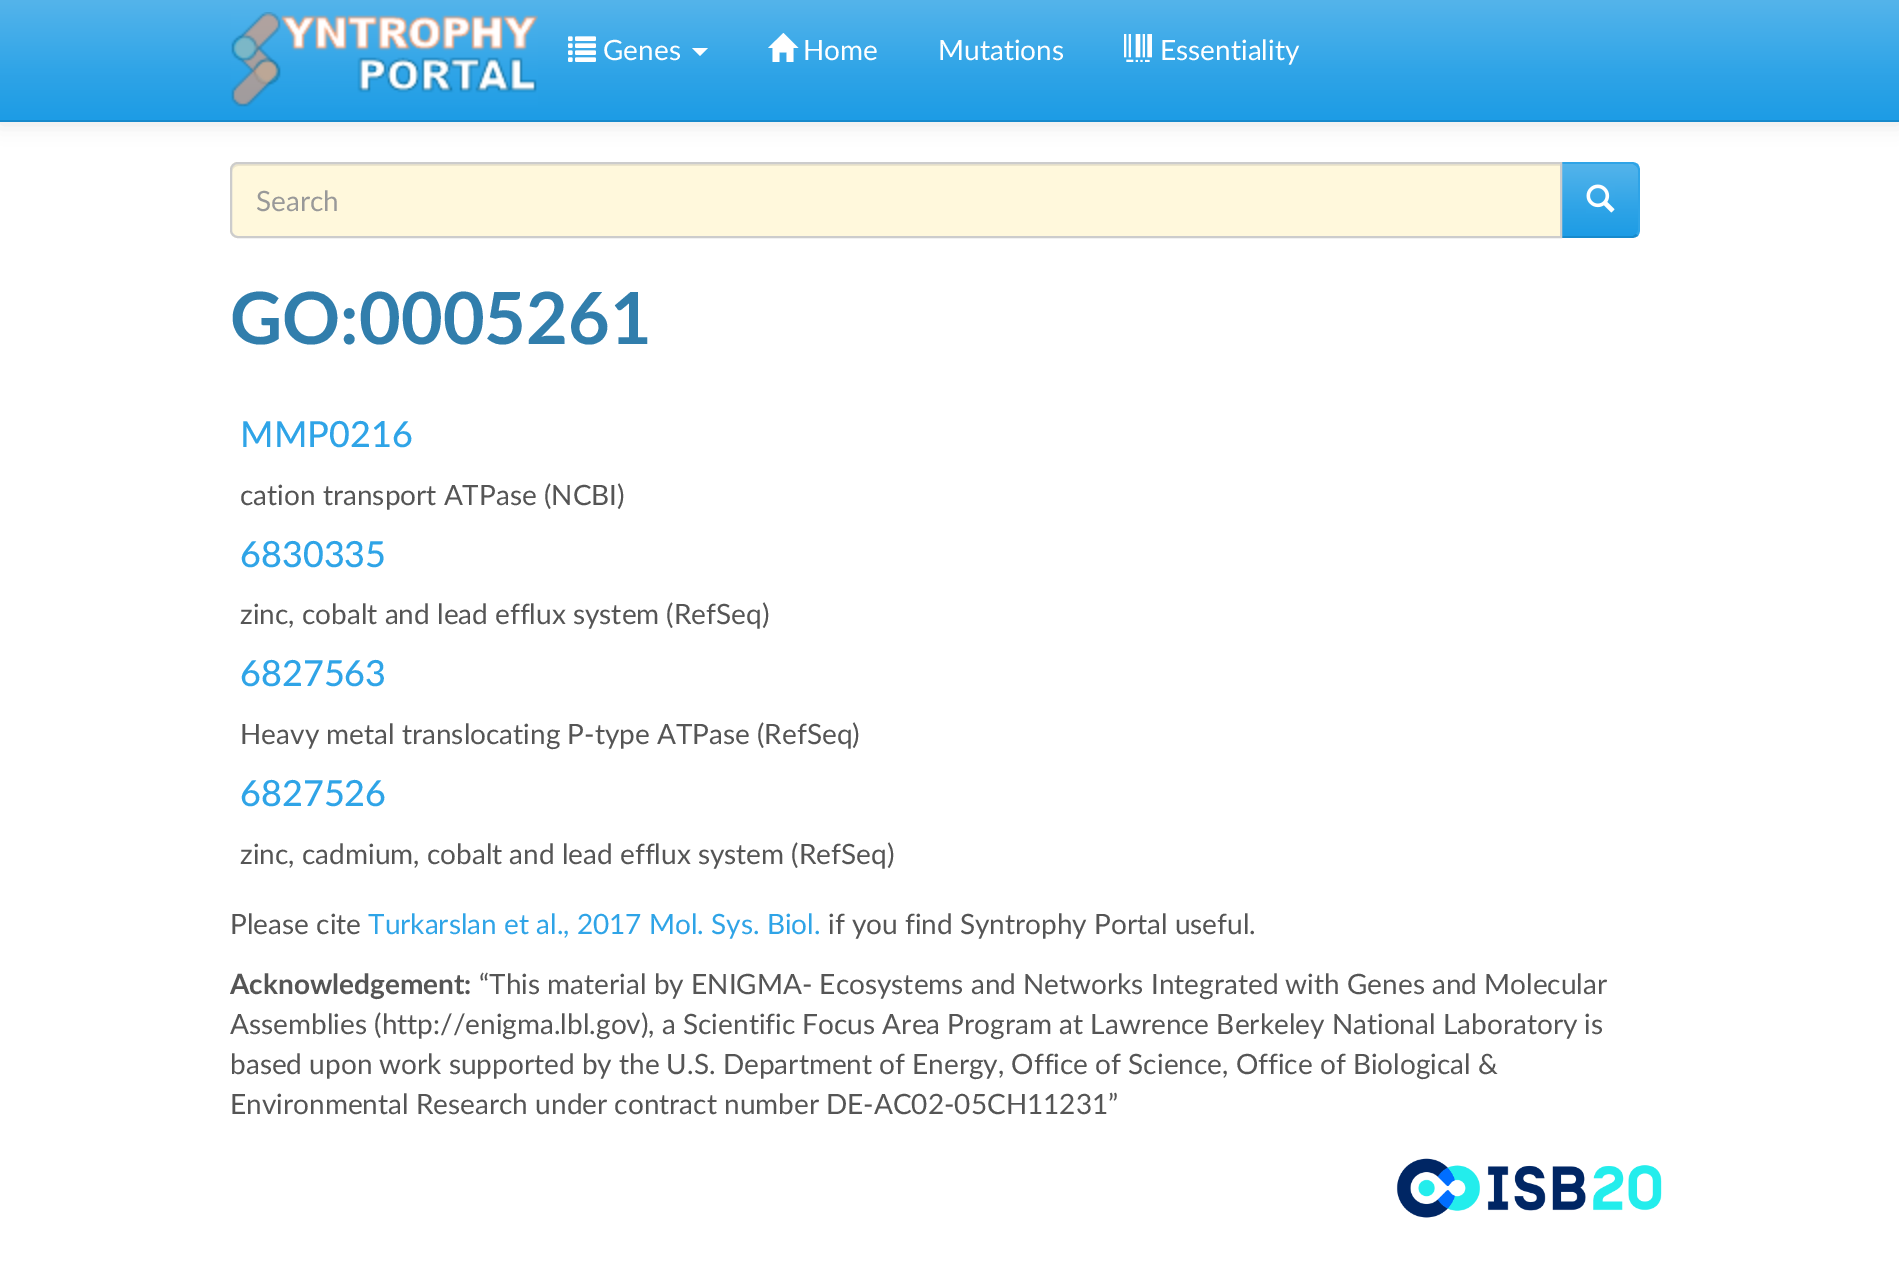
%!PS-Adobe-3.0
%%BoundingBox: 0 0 1899 1272
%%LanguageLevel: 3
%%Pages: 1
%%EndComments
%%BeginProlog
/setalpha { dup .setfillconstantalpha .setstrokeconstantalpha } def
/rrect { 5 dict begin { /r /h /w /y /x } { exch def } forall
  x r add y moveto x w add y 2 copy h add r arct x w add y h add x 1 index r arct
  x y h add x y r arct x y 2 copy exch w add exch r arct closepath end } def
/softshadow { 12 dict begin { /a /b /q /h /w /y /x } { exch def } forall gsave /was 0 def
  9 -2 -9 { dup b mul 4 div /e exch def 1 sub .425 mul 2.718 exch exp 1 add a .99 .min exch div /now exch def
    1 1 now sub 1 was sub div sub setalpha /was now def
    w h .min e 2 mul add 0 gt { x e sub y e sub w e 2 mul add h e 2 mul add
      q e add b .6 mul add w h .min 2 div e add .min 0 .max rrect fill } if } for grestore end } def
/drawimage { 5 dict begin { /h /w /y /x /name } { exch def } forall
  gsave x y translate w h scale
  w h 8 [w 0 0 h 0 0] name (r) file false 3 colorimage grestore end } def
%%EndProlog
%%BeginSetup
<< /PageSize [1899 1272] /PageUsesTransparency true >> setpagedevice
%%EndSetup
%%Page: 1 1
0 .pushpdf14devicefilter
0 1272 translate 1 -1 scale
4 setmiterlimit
1 setgray
0 0 1899 1272 rectfill
0 setgray
0 2 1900 122 0 10 0.1 softshadow
gsave newpath 0 0 moveto 1899 0 lineto 1899 120 lineto 0 120 lineto closepath clip newpath
<< /ShadingType 2 /ColorSpace /DeviceRGB /Coords [950 0 950 120] /Extend [true true] /Function << /FunctionType 3 /Domain [0 1] /Functions [<< /FunctionType 2 /Domain [0 1] /C0 [0.329 0.706 0.922] /C1 [0.184 0.643 0.906] /N 1 >> << /FunctionType 2 /Domain [0 1] /C0 [0.184 0.643 0.906] /C1 [0.114 0.612 0.898] /N 1 >>] /Bounds [0.6] /Encode [0 1 0 1] >> >> shfill grestore
0.09 0.541 0.8 setrgbcolor
0 120 1899 2 rectfill
(images/1.raw) 231 12 307 95 drawimage
(images/2.raw) 568 36 28 26 drawimage
1 setgray
newpath 692 48 moveto 708 48 lineto 700 56 lineto closepath fill
newpath 768 48 moveto 783.5 33 lineto 798.5 48 lineto 793.5 48 lineto 793.5 62 lineto 786.5 62 lineto 786.5 52.5 lineto 779.5 52.5 lineto 779.5 62 lineto 772.5 62 lineto 772.5 48 lineto closepath fill
(images/3.raw) 1124 34 28 28 drawimage
gsave newpath 1562 164 moveto 1638 164 lineto 1638 236 lineto 1562 236 lineto closepath clip newpath
<< /ShadingType 2 /ColorSpace /DeviceRGB /Coords [1600 164 1600 236] /Extend [true true] /Function << /FunctionType 3 /Domain [0 1] /Functions [<< /FunctionType 2 /Domain [0 1] /C0 [0.329 0.706 0.922] /C1 [0.184 0.643 0.906] /N 1 >> << /FunctionType 2 /Domain [0 1] /C0 [0.184 0.643 0.906] /C1 [0.114 0.612 0.898] /N 1 >>] /Bounds [0.6] /Encode [0 1 0 1] >> >> shfill grestore
0.184 0.643 0.906 setrgbcolor
newpath 1560 162 moveto 1562 164 lineto 1633 164 lineto 1636 166 lineto 1638 164 lineto 1636 163 1634 162 1632 162 curveto closepath fill
newpath 1640 230 moveto 1640 170 lineto 1640 168 1639 166 1638 164 curveto 1636 166 lineto 1637 167 1638 168 1638 170 curveto 1638 230 lineto 1638 232 1637 233 1636 234 curveto 1638 236 lineto 1639 234 1640 232 1640 230 curveto closepath fill
0.09 0.541 0.8 setrgbcolor
newpath 1632 238 moveto 1634 238 1636 237 1638 236 curveto 1636 234 lineto 1633 236 lineto 1562 236 lineto 1560 238 lineto closepath fill
1 0.973 0.863 setrgbcolor
newpath 238 162 moveto 1562 162 lineto 1562 238 lineto 238 238 lineto 233.5 238 230 234.5 230 230 curveto 230 170 lineto 230 165.5 233.5 162 238 162 curveto closepath fill
0.925 0.898 0.8 setrgbcolor
newpath 238 166 moveto 1560 166 lineto 1560 164 lineto 238 164 lineto 235 164 232 167 232 170 curveto 232 172 lineto 232 169 235 166 238 166 curveto closepath fill
0.8 setgray
2 setlinewidth
newpath 238 163 moveto 1561 163 lineto 1561 237 lineto 238 237 lineto 234 237 231 234 231 230 curveto 231 170 lineto 231 166 234 163 238 163 curveto closepath stroke
(images/4.raw) 1586 184 29 29 drawimage
(images/5.raw) 1396 1158 266 60 drawimage
/Lato-Regular [28 0 0 -28 0 0] selectfont
1 setgray
603 60 moveto (Genes) show
803 60 moveto (Home) show
938 60 moveto (Mutations) show
1160 60 moveto (Essentiality) show
0.6 setgray
256 211 moveto (Search) show
/Lato-Bold [72 0 0 -72 0 0] selectfont
0.192 0.494 0.675 setrgbcolor
230 344 moveto (GO:0005261) show
/Lato-Medium [36 0 0 -36 0 0] selectfont
0.184 0.643 0.906 setrgbcolor
240 447 moveto (MMP0216) show
/Lato-Regular [28 0 0 -28 0 0] selectfont
0.333 setgray
240 505 moveto (cation transport ATPase \(NCBI\)) show
/Lato-Medium [36 0 0 -36 0 0] selectfont
0.184 0.643 0.906 setrgbcolor
240 567 moveto (6830335) show
/Lato-Regular [28 0 0 -28 0 0] selectfont
0.333 setgray
240 624 moveto (zinc, cobalt and lead efflux system \(RefSeq\)) show
/Lato-Medium [36 0 0 -36 0 0] selectfont
0.184 0.643 0.906 setrgbcolor
240 686 moveto (6827563) show
/Lato-Regular [28 0 0 -28 0 0] selectfont
0.333 setgray
240 744 moveto (Heavy metal translocating P-type ATPase \(RefSeq\)) show
/Lato-Medium [36 0 0 -36 0 0] selectfont
0.184 0.643 0.906 setrgbcolor
240 806 moveto (6827526) show
/Lato-Regular [28 0 0 -28 0 0] selectfont
0.333 setgray
240 864 moveto (zinc, cadmium, cobalt and lead efflux system \(RefSeq\)) show
230 934 moveto (Please cite) show
0.184 0.643 0.906 setrgbcolor
368 934 moveto (Turkarslan et al., 2017 Mol. Sys. Biol.) show
0.333 setgray
828 934 moveto (if you find Syntrophy Portal useful.) show
/Lato-Bold [28 0 0 -28 0 0] selectfont
230 994 moveto (Acknowledgement:) show
/Lato-Regular [28 0 0 -28 0 0] selectfont
479 994 moveto (“This material by ENIGMA- Ecosystems and Networks Integrated with Genes and Molecular) show
230 1034 moveto (Assemblies \(http://enigma.lbl.gov\), a Scientific Focus Area Program at Lawrence Berkeley National Laboratory is) show
230 1074 moveto (based upon work supported by the U.S. Department of Energy, Office of Science, Office of Biological &) show
230 1114 moveto (Environmental Research under contract number DE-AC02-05CH11231”) show
.poppdf14devicefilter showpage
%%EOF
